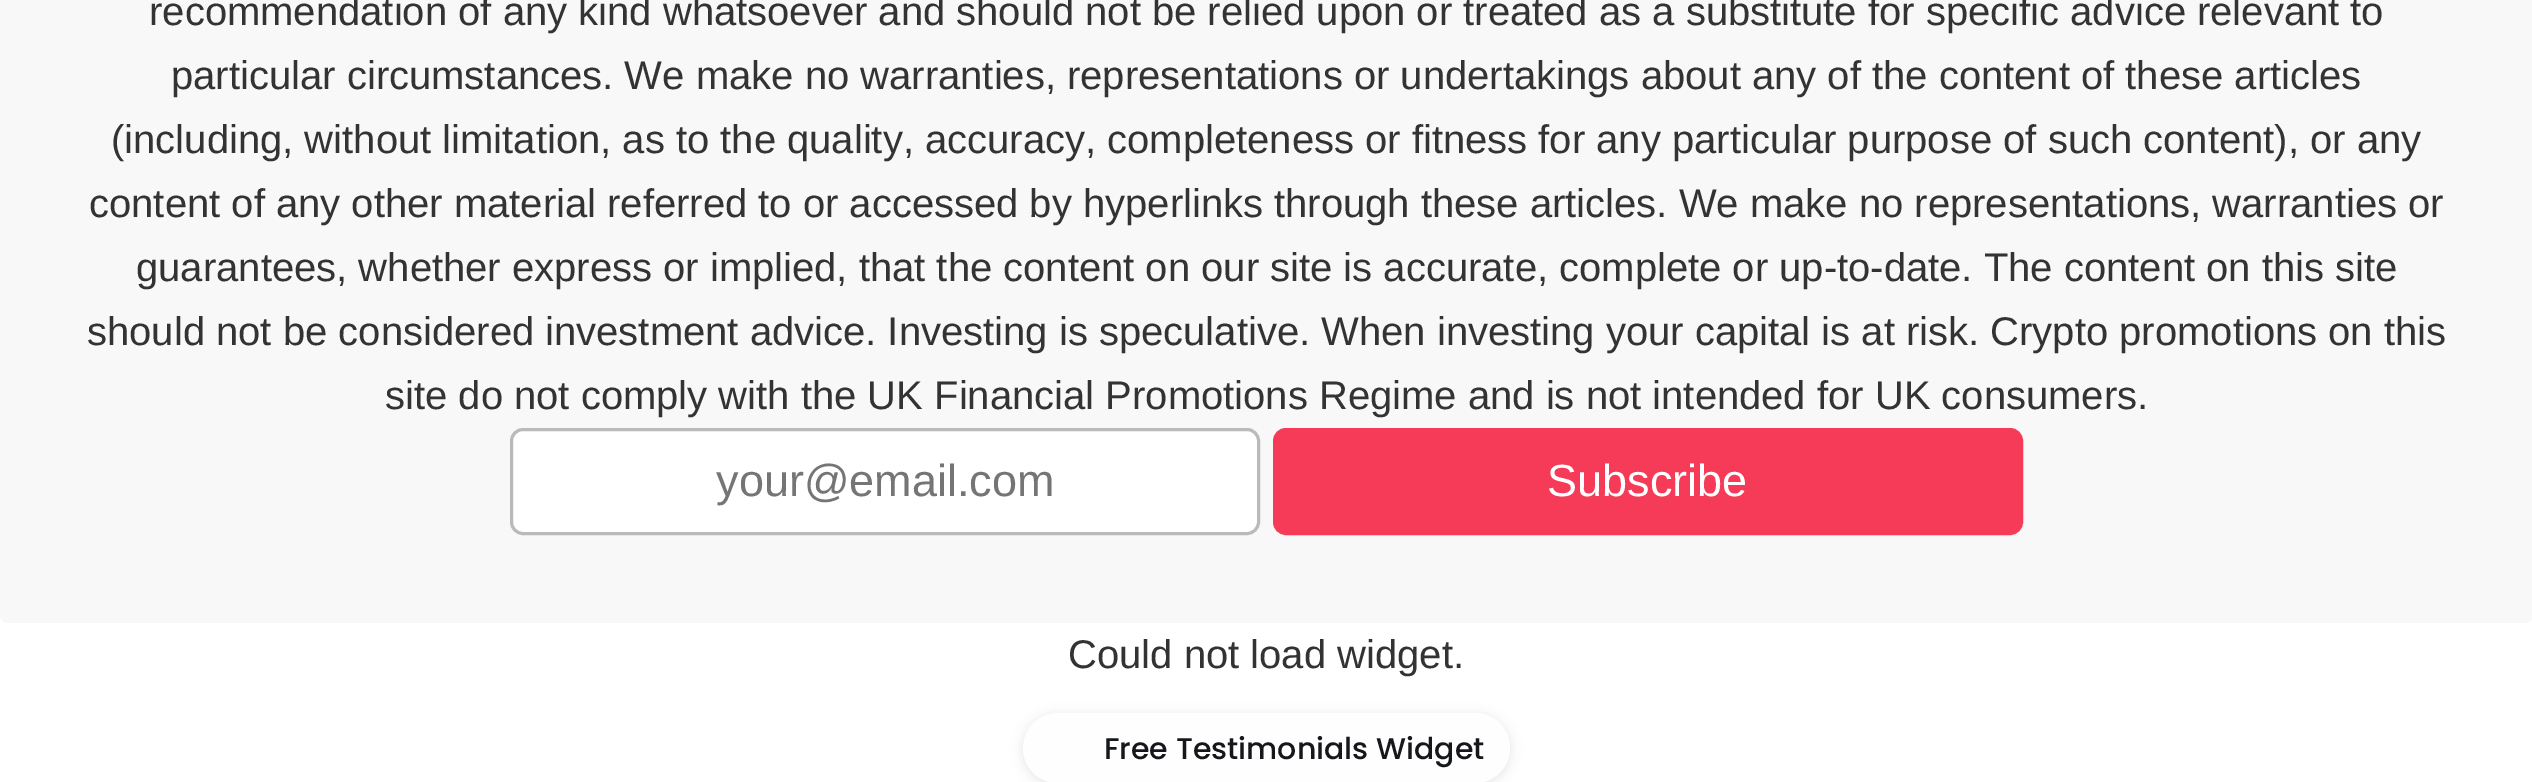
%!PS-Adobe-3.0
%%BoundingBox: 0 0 2532 782
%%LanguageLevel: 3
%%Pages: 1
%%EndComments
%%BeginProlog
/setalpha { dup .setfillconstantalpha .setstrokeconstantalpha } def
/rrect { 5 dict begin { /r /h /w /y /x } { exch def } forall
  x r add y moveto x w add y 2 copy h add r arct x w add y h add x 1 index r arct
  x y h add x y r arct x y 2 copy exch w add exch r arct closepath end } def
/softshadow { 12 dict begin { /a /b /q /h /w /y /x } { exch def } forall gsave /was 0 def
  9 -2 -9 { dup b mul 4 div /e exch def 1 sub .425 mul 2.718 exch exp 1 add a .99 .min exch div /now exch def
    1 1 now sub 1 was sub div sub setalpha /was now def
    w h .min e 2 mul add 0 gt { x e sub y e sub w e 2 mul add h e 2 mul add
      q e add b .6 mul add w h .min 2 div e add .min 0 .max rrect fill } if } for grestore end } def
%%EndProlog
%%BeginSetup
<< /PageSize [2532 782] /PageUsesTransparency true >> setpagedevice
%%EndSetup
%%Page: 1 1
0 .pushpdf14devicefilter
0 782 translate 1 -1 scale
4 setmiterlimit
1 setgray
0 0 2532 782 rectfill
0.973 setgray
0 -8 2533 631 8 rrect fill
1 setgray
511.5 429.5 747 104 11.5 rrect gsave fill grestore
0.729 setgray
3 setlinewidth
stroke
0.961 0.231 0.341 setrgbcolor
1274.5 429.5 747 104 11.5 rrect gsave fill grestore
stroke
0 setgray
1023 715 487 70 35 6 0.1 softshadow
0.996 setgray
1023 713 487 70 35 rrect fill
/LiberationSans-Regular [40 0 0 -40 0 0] selectfont
0.2 setgray
149 25 moveto (recommendation of any kind whatsoever and should not be relied upon or treated as a substitute for specific advice relevant to) show
171 89 moveto (particular circumstances. We make no warranties, representations or undertakings about any of the content of these articles) show
111 153 moveto (\(including, without limitation, as to the quality, accuracy, completeness or fitness for any particular purpose of such content\), or any) show
89 217 moveto (content of any other material referred to or accessed by hyperlinks through these articles. We make no representations, warranties or) show
136 281 moveto (guarantees, whether express or implied, that the content on our site is accurate, complete or up-to-date. The content on this site) show
87 345 moveto (should not be considered investment advice. Investing is speculative. When investing your capital is at risk. Crypto promotions on this) show
385 409 moveto (site do not comply with the UK Financial Promotions Regime and is not intended for UK consumers.) show
/LiberationSans-Regular [45 0 0 -45 0 0] selectfont
0.459 setgray
716 496 moveto (your@email.com) show
1 setgray
1547 496 moveto (Subscribe) show
/LiberationSans-Regular [40 0 0 -40 0 0] selectfont
0.2 setgray
1068 668 moveto (Could not load widget.) show
/Poppins-Medium [30 0 0 -30 0 0] selectfont
0.086 0.09 0.106 setrgbcolor
1104 759 moveto (Free Testimonials Widget) show
.poppdf14devicefilter showpage
%%EOF
